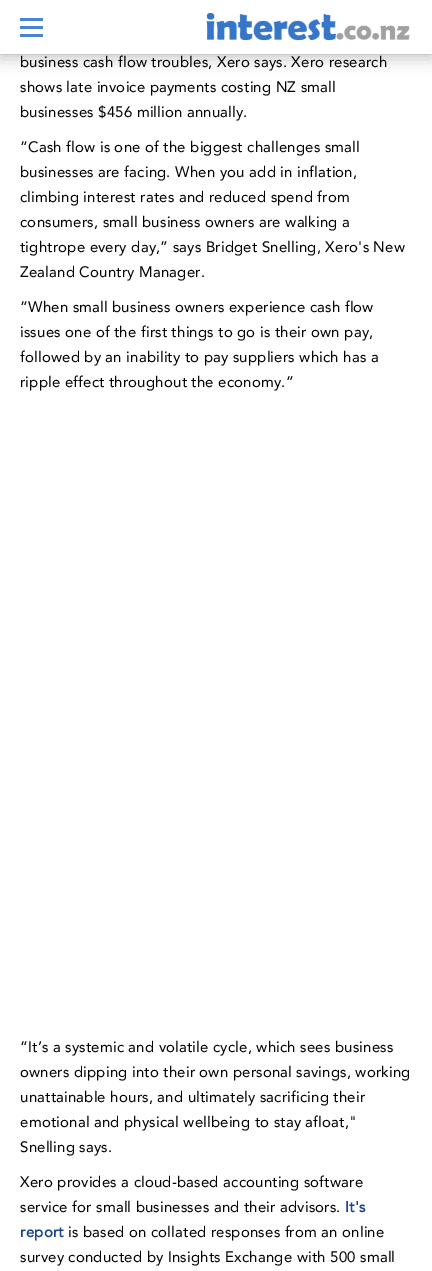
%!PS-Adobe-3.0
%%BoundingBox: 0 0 432 1271
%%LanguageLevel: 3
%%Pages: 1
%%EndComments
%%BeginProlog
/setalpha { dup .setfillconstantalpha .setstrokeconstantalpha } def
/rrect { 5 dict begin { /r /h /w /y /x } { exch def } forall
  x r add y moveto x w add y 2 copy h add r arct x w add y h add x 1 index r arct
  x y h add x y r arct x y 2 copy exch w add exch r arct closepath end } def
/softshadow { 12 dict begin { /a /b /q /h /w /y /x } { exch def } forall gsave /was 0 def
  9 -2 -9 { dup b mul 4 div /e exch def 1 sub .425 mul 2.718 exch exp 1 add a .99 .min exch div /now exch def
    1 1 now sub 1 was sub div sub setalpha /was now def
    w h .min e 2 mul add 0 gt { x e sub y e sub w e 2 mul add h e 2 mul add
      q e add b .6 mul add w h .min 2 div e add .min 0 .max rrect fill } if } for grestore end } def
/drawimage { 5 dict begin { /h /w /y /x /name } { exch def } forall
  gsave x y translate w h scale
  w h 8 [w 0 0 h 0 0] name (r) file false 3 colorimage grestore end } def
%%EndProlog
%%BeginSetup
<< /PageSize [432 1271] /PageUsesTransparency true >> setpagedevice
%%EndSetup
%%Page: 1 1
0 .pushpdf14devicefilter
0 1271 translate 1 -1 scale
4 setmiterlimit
1 setgray
0 0 432 1271 rectfill
0 setgray
0 4 432 55 0 7.5 0.2 softshadow
1 setgray
0 0 432 54 rectfill
0.784 0.792 0.812 setrgbcolor
0 54 432 1 rectfill
0.294 0.522 0.812 setrgbcolor
20 18 23 3 rectfill
20 26 23 3 rectfill
20 34 23 3 rectfill
(images/1.raw) 206 13 204 28 drawimage
/Avenir-Regular [15 0 0 -15 0 0] selectfont
0 setgray
20 67 moveto 0.2 0 (business cash flow troubles, Xero says. Xero research) ashow
20 92 moveto 0.2 0 (shows late invoice payments costing NZ small) ashow
20 117 moveto 0.2 0 (businesses $456 million annually.) ashow
20 152 moveto 0.2 0 (“Cash flow is one of the biggest challenges small) ashow
20 177 moveto 0.2 0 (businesses are facing. When you add in inflation,) ashow
20 202 moveto 0.2 0 (climbing interest rates and reduced spend from) ashow
20 227 moveto 0.2 0 (consumers, small business owners are walking a) ashow
20 252 moveto 0.2 0 (tightrope every day,” says Bridget Snelling, Xero's New) ashow
20 277 moveto 0.2 0 (Zealand Country Manager.) ashow
20 312 moveto 0.2 0 (“When small business owners experience cash flow) ashow
20 337 moveto 0.2 0 (issues one of the first things to go is their own pay,) ashow
20 362 moveto 0.2 0 (followed by an inability to pay suppliers which has a) ashow
20 387 moveto 0.2 0 (ripple effect throughout the economy.”) ashow
20 1052 moveto 0.2 0 (“It’s a systemic and volatile cycle, which sees business) ashow
20 1077 moveto 0.2 0 (owners dipping into their own personal savings, working) ashow
20 1102 moveto 0.2 0 (unattainable hours, and ultimately sacrificing their) ashow
20 1127 moveto 0.2 0 (emotional and physical wellbeing to stay afloat,") ashow
20 1152 moveto 0.2 0 (Snelling says.) ashow
20 1187 moveto 0.2 0 (Xero provides a cloud-based accounting software) ashow
20 1212 moveto 0.2 0 (service for small businesses and their advisors.) ashow
/Avenir-Bold [15 0 0 -15 0 0] selectfont
0.094 0.275 0.545 setrgbcolor
345 1212 moveto 0.25 0 (It's) ashow
20 1237 moveto 0.25 0 (report) ashow
/Avenir-Regular [15 0 0 -15 0 0] selectfont
0 setgray
68 1237 moveto 0.2 0 (is based on collated responses from an online) ashow
20 1262 moveto 0.2 0 (survey conducted by Insights Exchange with 500 small) ashow
.poppdf14devicefilter showpage
%%EOF
